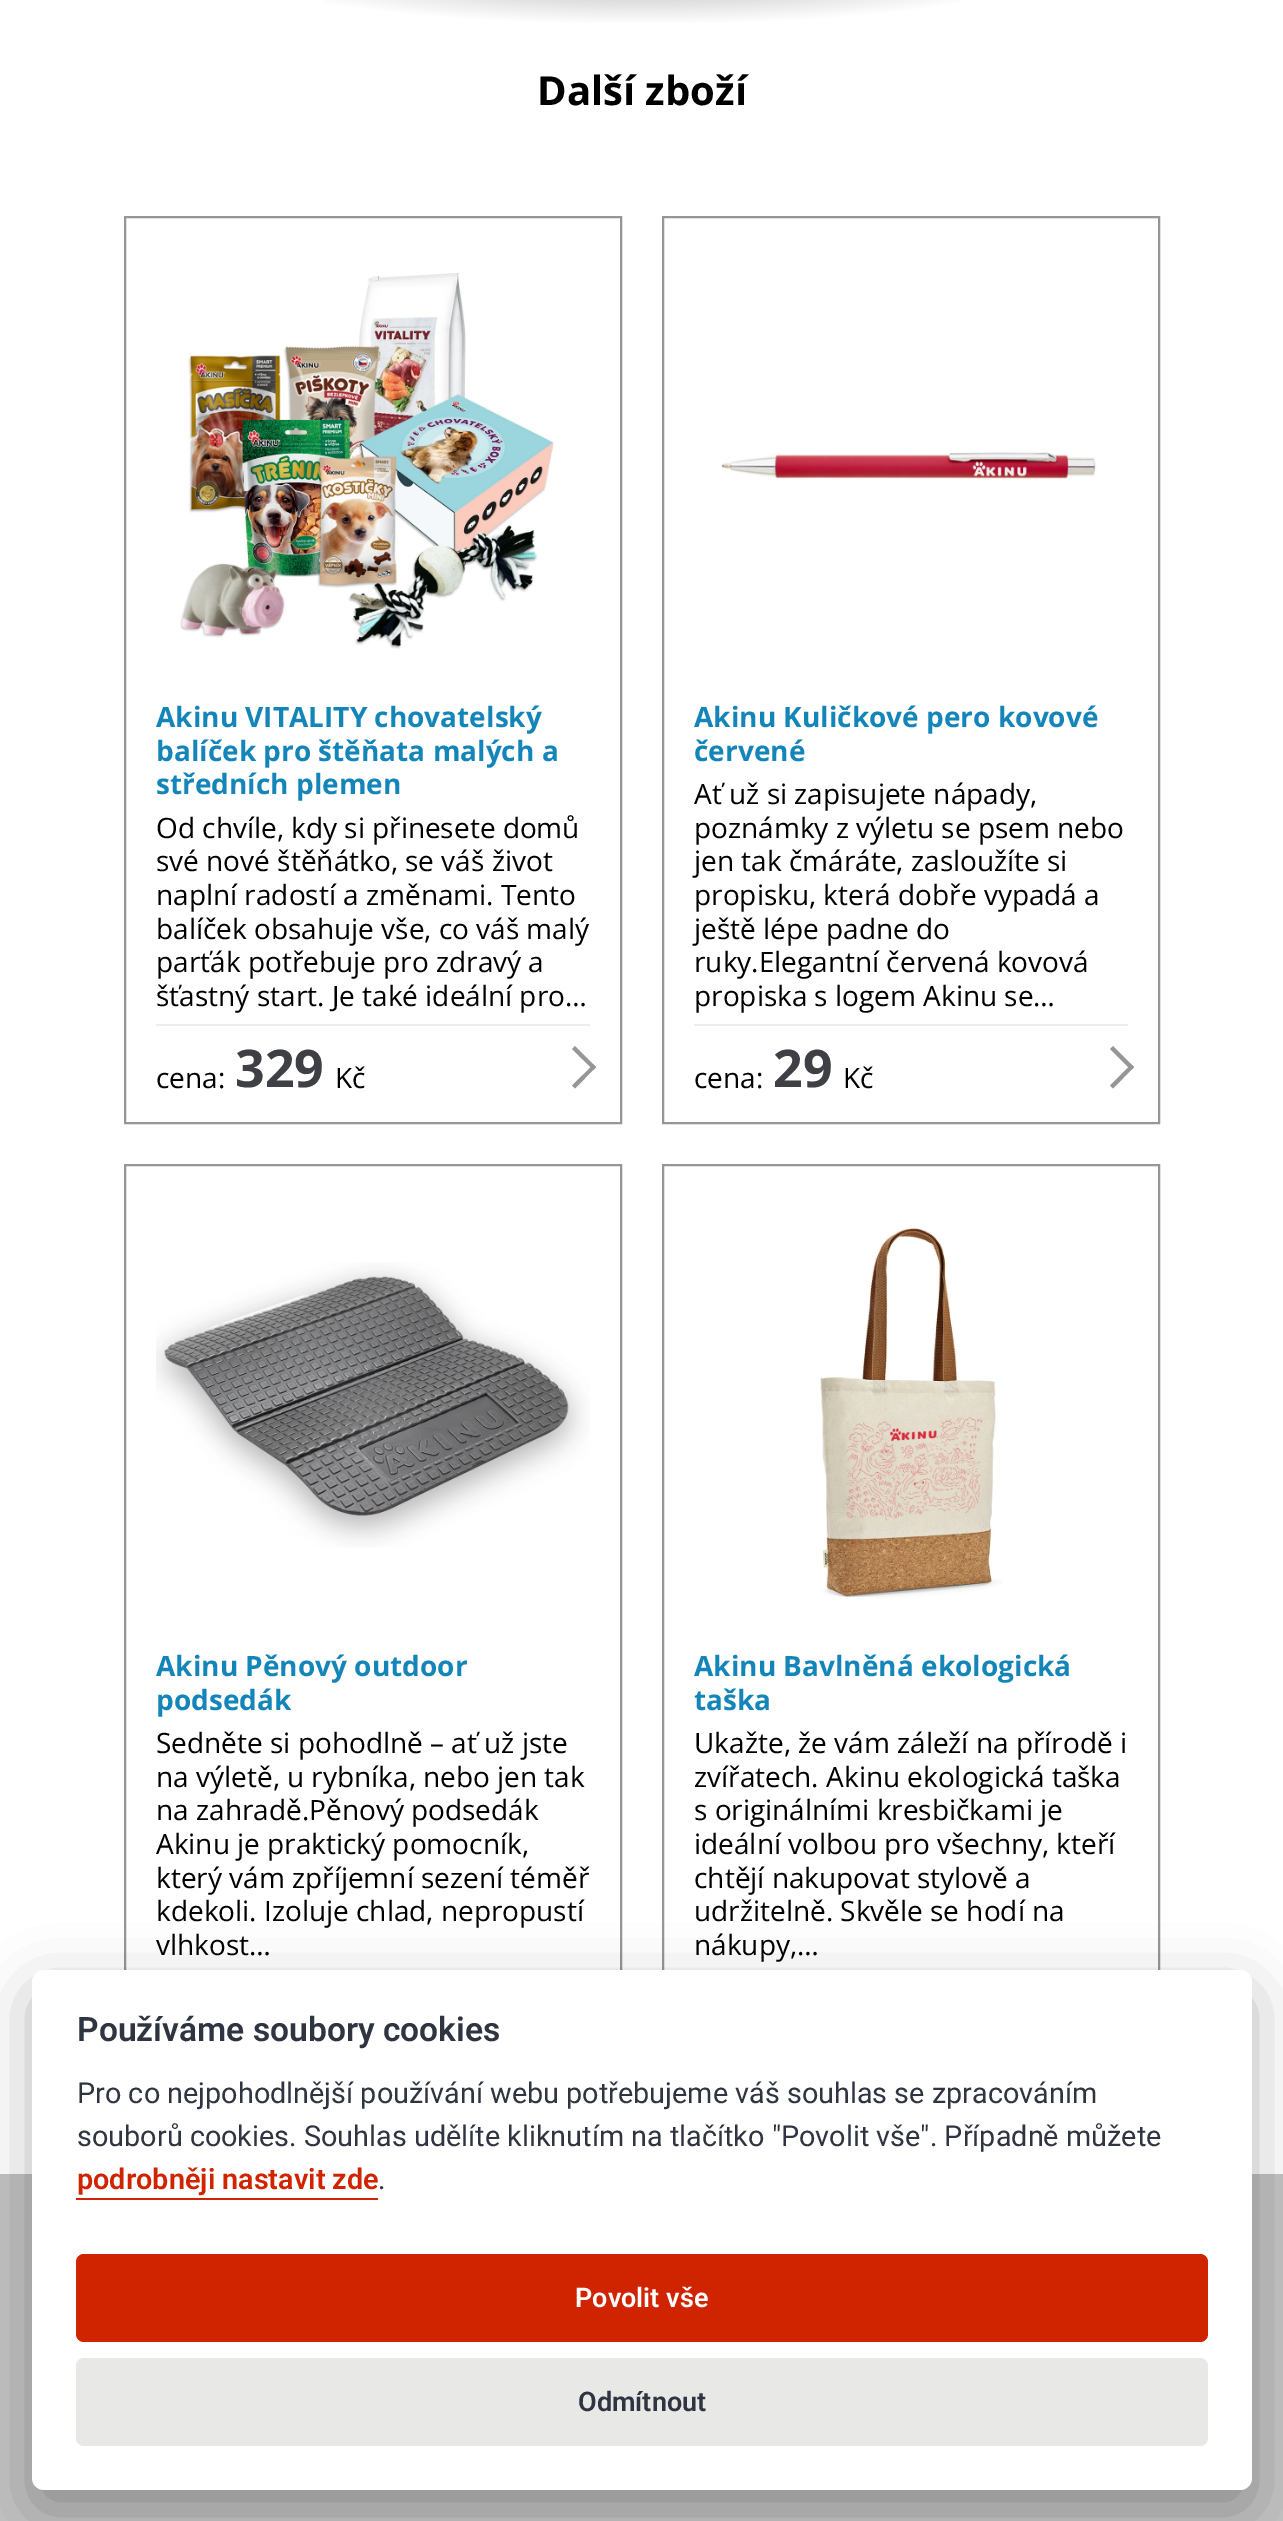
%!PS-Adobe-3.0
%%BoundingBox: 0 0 1283 2521
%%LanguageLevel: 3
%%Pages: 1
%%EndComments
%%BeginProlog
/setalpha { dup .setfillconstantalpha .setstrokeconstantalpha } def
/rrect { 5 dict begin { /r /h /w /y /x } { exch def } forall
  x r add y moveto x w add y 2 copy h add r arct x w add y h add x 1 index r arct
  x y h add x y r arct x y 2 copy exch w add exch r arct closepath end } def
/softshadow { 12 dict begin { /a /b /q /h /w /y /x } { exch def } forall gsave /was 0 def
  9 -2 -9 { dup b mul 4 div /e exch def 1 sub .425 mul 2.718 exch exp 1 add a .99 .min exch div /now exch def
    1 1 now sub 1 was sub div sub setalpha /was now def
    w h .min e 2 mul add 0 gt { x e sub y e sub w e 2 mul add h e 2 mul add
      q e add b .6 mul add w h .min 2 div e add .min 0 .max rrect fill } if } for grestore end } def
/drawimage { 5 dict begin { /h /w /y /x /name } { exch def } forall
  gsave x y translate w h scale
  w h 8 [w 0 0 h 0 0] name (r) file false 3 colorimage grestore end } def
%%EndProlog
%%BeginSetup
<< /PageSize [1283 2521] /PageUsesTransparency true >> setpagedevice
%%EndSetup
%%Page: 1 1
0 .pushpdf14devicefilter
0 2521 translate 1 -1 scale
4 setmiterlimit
1 setgray
0 0 1283 2521 rectfill
gsave newpath 323 0 moveto 961 0 lineto 961 23 lineto 323 23 lineto closepath clip newpath 642 -32 translate 817 113 scale
<< /ShadingType 3 /ColorSpace /DeviceRGB /Coords [0 0 0 0 0 1] /Extend [true true] /Function << /FunctionType 3 /Domain [0 1] /Functions [<< /FunctionType 2 /Domain [0 1] /C0 [0.69 0.69 0.69] /C1 [1 1 1] /N 1 >> << /FunctionType 2 /Domain [0 1] /C0 [1 1 1] /C1 [1 1 1] /N 1 >>] /Bounds [0.5] /Encode [0 1 0 1] >> >> shfill grestore
0.588 setgray
2 setlinewidth
125 217 496 906 rectstroke
(images/1.raw) 180 272 374 377 drawimage
0.933 setgray
156 1024 434 2 rectfill
0.588 setgray
newpath 572 1049 moveto 575 1046 lineto 596 1067 lineto 593.5 1070 lineto closepath fill
newpath 572 1085.5 moveto 593.5 1064.5 lineto 596 1067 lineto 575 1088.5 lineto closepath fill
663 217 496 906 rectstroke
(images/2.raw) 721 452 376 29 drawimage
0.933 setgray
694 1024 434 2 rectfill
0.588 setgray
newpath 1110 1049 moveto 1113 1046 lineto 1134 1067 lineto 1131 1070 lineto closepath fill
newpath 1110 1085.5 moveto 1131 1064.5 lineto 1134 1067 lineto 1113 1088.5 lineto closepath fill
125 1165 496 908 rectstroke
(images/3.raw) 156 1262 434 286 drawimage
663 1165 496 908 rectstroke
(images/4.raw) 820 1227 182 372 drawimage
0.765 setgray
0 2174 1283 347 rectfill
0.008 0.008 0.012 setrgbcolor
32 1990 1220 520 12 30 0.28 softshadow
1 setgray
32 1970 1220 520 12 rrect fill
0.816 0.141 0 setrgbcolor
76 2198 302 2 rectfill
76 2254 1132 88 8 rrect fill
0.91 0.91 0.906 setrgbcolor
76 2358 1132 88 8 rrect fill
/OpenSans-Bold [40 0 0 -40 0 0] selectfont
0 setgray
537 105 moveto (Další zboží) show
/OpenSans-Bold [28 0 0 -28 0 0] selectfont
0.078 0.522 0.725 setrgbcolor
156 727 moveto (Akinu VITALITY chovatelský) show
156 761 moveto (balíček pro štěňata malých a) show
156 794 moveto (středních plemen) show
/OpenSans-Regular [28 0 0 -28 0 0] selectfont
0 setgray
156 838 moveto (Od chvíle, kdy si přinesete domů) show
156 871 moveto (své nové štěňátko, se váš život) show
156 905 moveto (naplní radostí a změnami. Tento) show
156 939 moveto (balíček obsahuje vše, co váš malý) show
156 972 moveto (parťák potřebuje pro zdravý a) show
156 1006 moveto (šťastný start. Je také ideální pro…) show
156 1088 moveto (cena:) show
/OpenSans-Bold [52 0 0 -52 0 0] selectfont
0.247 0.251 0.271 setrgbcolor
235 1087 moveto (329) show
/OpenSans-Regular [28 0 0 -28 0 0] selectfont
0 setgray
335 1088 moveto (Kč) show
/OpenSans-Bold [28 0 0 -28 0 0] selectfont
0.078 0.522 0.725 setrgbcolor
694 727 moveto (Akinu Kuličkové pero kovové) show
694 761 moveto (červené) show
/OpenSans-Regular [28 0 0 -28 0 0] selectfont
0 setgray
694 804 moveto (Ať už si zapisujete nápady,) show
694 838 moveto (poznámky z výletu se psem nebo) show
694 871 moveto (jen tak čmáráte, zasloužíte si) show
694 905 moveto (propisku, která dobře vypadá a) show
694 939 moveto (ještě lépe padne do) show
694 972 moveto (ruky.Elegantní červená kovová) show
694 1006 moveto (propiska s logem Akinu se…) show
694 1088 moveto (cena:) show
/OpenSans-Bold [52 0 0 -52 0 0] selectfont
0.247 0.251 0.271 setrgbcolor
773 1087 moveto (29) show
/OpenSans-Regular [28 0 0 -28 0 0] selectfont
0 setgray
843 1088 moveto (Kč) show
/OpenSans-Bold [28 0 0 -28 0 0] selectfont
0.078 0.522 0.725 setrgbcolor
156 1676 moveto (Akinu Pěnový outdoor) show
156 1710 moveto (podsedák) show
/OpenSans-Regular [28 0 0 -28 0 0] selectfont
0 setgray
156 1753 moveto (Sedněte si pohodlně – ať už jste) show
156 1787 moveto (na výletě, u rybníka, nebo jen tak) show
156 1820 moveto (na zahradě.Pěnový podsedák) show
156 1854 moveto (Akinu je praktický pomocník,) show
156 1888 moveto (který vám zpříjemní sezení téměř) show
156 1921 moveto (kdekoli. Izoluje chlad, nepropustí) show
156 1955 moveto (vlhkost…) show
/OpenSans-Bold [28 0 0 -28 0 0] selectfont
0.078 0.522 0.725 setrgbcolor
694 1676 moveto (Akinu Bavlněná ekologická) show
694 1710 moveto (taška) show
/OpenSans-Regular [28 0 0 -28 0 0] selectfont
0 setgray
694 1753 moveto (Ukažte, že vám záleží na přírodě i) show
694 1787 moveto (zvířatech. Akinu ekologická taška) show
694 1820 moveto (s originálními kresbičkami je) show
694 1854 moveto (ideální volbou pro všechny, kteří) show
694 1888 moveto (chtějí nakupovat stylově a) show
694 1921 moveto (udržitelně. Skvěle se hodí na) show
694 1955 moveto (nákupy,…) show
/Roboto-SemiBold [33.6 0 0 -33.6 0 0] selectfont
0.18 0.204 0.251 setrgbcolor
77 2041 moveto (Používáme soubory cookies) show
/Roboto-Regular [28.8 0 0 -28.8 0 0] selectfont
77 2103 moveto (Pro co nejpohodlnější používání webu potřebujeme váš souhlas se zpracováním) show
77 2146 moveto (souborů cookies. Souhlas udělíte kliknutím na tlačítko "Povolit vše". Případně můžete) show
/Roboto-SemiBold [28.8 0 0 -28.8 0 0] selectfont
0.816 0.141 0 setrgbcolor
77 2189 moveto (podrobněji nastavit zde) show
/Roboto-Regular [28.8 0 0 -28.8 0 0] selectfont
0.18 0.204 0.251 setrgbcolor
378 2189 moveto (.) show
/Roboto-SemiBold [27 0 0 -27 0 0] selectfont
1 setgray
575 2307 moveto (Povolit vše) show
0.18 0.204 0.251 setrgbcolor
578 2411 moveto (Odmítnout) show
.poppdf14devicefilter showpage
%%EOF
